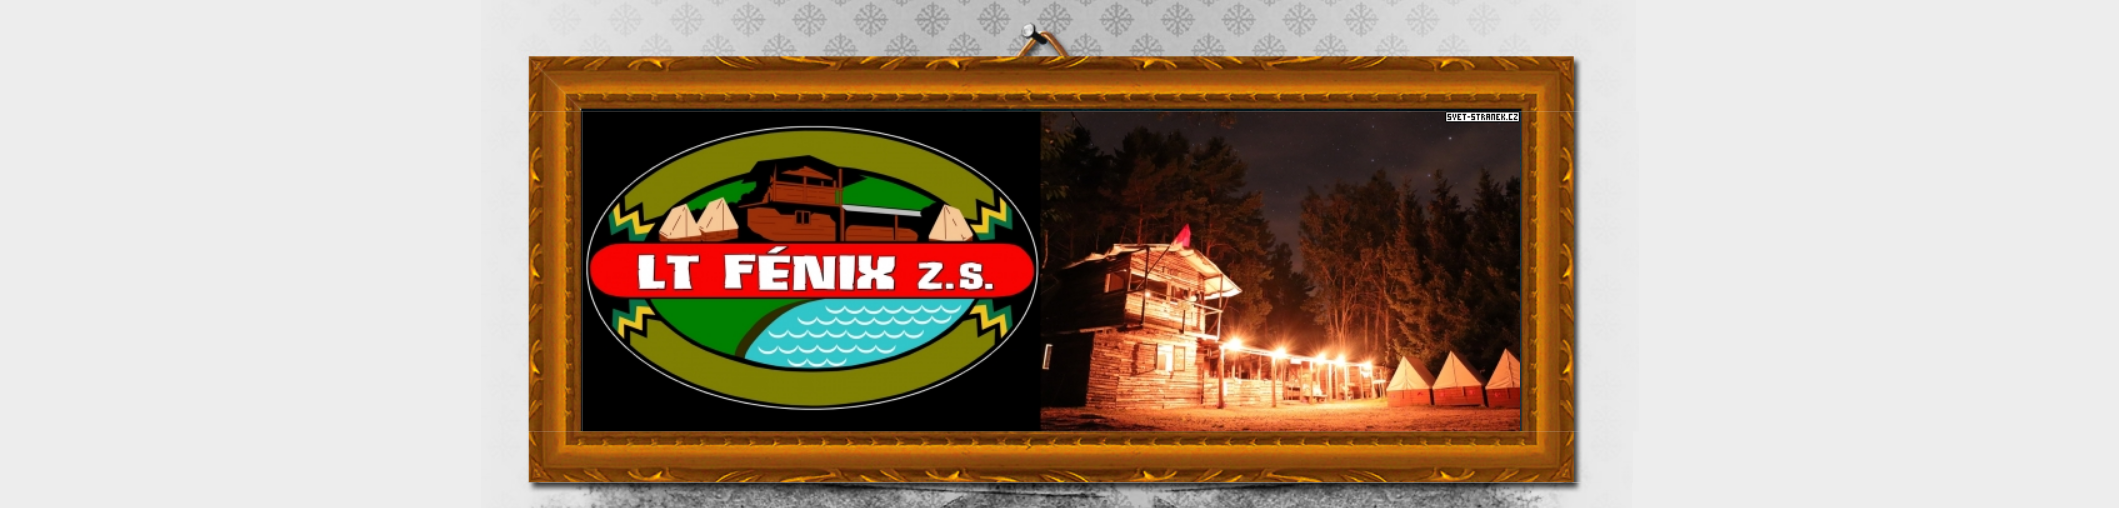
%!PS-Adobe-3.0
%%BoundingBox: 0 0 2119 508
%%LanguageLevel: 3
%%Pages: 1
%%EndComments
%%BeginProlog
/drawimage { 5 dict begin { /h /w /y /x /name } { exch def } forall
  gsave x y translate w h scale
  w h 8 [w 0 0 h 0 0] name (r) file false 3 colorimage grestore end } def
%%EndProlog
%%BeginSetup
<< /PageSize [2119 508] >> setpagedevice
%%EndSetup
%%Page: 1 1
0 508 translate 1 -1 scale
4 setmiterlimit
0.929 setgray
0 0 2119 508 rectfill
(images/1.raw) 481 0 1151 508 drawimage
(images/2.raw) 521 0 1115 112 drawimage
(images/3.raw) 498 111 1141 321 drawimage
(images/6.raw) 526 431 1107 52 drawimage
(images/4.raw) 582 111 938 321 drawimage
(images/5.raw) 1445 111 75 12 drawimage
(images/7.raw) 523 482 1058 1 drawimage
(images/8.raw) 523 482 1063 26 drawimage
showpage
%%EOF
